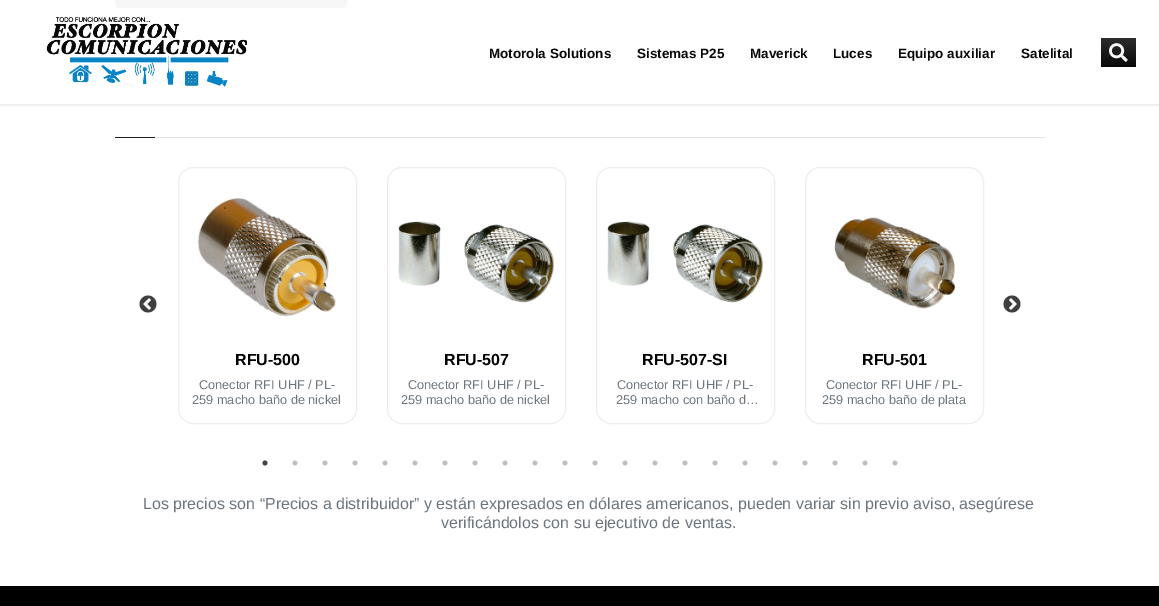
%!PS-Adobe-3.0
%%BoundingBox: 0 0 1159 606
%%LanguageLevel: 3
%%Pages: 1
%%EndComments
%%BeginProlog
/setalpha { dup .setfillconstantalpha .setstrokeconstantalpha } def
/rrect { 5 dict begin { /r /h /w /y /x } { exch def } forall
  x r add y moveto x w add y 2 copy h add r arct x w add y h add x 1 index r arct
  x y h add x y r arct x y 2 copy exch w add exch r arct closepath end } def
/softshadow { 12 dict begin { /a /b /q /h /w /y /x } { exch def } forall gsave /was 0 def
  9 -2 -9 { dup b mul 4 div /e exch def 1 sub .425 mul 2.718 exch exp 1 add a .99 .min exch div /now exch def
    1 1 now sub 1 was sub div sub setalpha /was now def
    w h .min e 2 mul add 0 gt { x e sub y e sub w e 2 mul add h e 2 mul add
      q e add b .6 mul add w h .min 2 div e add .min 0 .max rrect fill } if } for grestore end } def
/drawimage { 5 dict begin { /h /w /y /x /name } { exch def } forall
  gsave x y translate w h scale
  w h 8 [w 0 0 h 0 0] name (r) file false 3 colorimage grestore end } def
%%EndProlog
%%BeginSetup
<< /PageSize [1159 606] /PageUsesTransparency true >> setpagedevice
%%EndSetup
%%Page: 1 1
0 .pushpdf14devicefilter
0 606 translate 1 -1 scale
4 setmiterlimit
1 setgray
0 0 1159 606 rectfill
0 setgray
115 -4 232 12 4 rrect fill
0.902 setgray
115 28 930 1 rectfill
gsave
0 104 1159 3 rectclip
0 setgray
0 0 1159 104 0 2.5 0.15 softshadow
grestore
0.97 setalpha
1 setgray
115 0 930 29 rectfill
1 setalpha
(images/1.raw) 46 17 201 70 drawimage
gsave 1101 38 35 29 3 rrect clip newpath
<< /ShadingType 2 /ColorSpace /DeviceRGB /Coords [1119 38 1119 67] /Extend [true true] /Function << /FunctionType 2 /Domain [0 1] /C0 [0.176 0.176 0.176] /C1 [0.031 0.031 0.031] /N 1 >> >> shfill grestore
(images/2.raw) 1109 43 19 19 drawimage
0.882 setgray
155 137 890 1 rectfill
0.118 setgray
115 137 40 1 rectfill
(images/3.raw) 139 295 18 18 drawimage
(images/4.raw) 1003 295 18 18 drawimage
0.933 setgray
178.5 167.5 178 256 14.5 rrect stroke
(images/5.raw) 197 198 139 119 drawimage
387.5 167.5 178 256 14.5 rrect stroke
(images/6.raw) 398 221 157 82 drawimage
596.5 167.5 178 256 14.5 rrect stroke
(images/6.raw) 607 221 157 82 drawimage
805.5 167.5 178 256 14.5 rrect stroke
(images/7.raw) 834 217 122 92 drawimage
(images/8.raw) 262 460 6 6 drawimage
(images/9.raw) 292 460 6 6 drawimage
(images/9.raw) 322 460 6 6 drawimage
(images/9.raw) 352 460 6 6 drawimage
(images/9.raw) 382 460 6 6 drawimage
(images/9.raw) 412 460 6 6 drawimage
(images/9.raw) 442 460 6 6 drawimage
(images/9.raw) 472 460 6 6 drawimage
(images/9.raw) 502 460 6 6 drawimage
(images/9.raw) 532 460 6 6 drawimage
(images/9.raw) 562 460 6 6 drawimage
(images/9.raw) 592 460 6 6 drawimage
(images/9.raw) 622 460 6 6 drawimage
(images/9.raw) 652 460 6 6 drawimage
(images/9.raw) 682 460 6 6 drawimage
(images/9.raw) 712 460 6 6 drawimage
(images/9.raw) 742 460 6 6 drawimage
(images/9.raw) 772 460 6 6 drawimage
(images/9.raw) 802 460 6 6 drawimage
(images/9.raw) 832 460 6 6 drawimage
(images/9.raw) 862 460 6 6 drawimage
(images/9.raw) 892 460 6 6 drawimage
0 setgray
0 586 1159 20 rectfill
/LiberationSans-Bold [13.5 0 0 -13.5 0 0] selectfont
0.031 setgray
489 58 moveto (Motorola Solutions) show
637 58 moveto (Sistemas P25) show
750 58 moveto (Maverick) show
833 58 moveto (Luces) show
898 58 moveto (Equipo auxiliar) show
1021 58 moveto (Satelital) show
/Arimo-Bold [16 0 0 -16 0 0] selectfont
0 setgray
235 365 moveto (RFU-500) show
/Arimo-Regular [12.75 0 0 -12.75 0 0] selectfont
0.424 0.459 0.49 setrgbcolor
199 389 moveto (Conector RFI UHF / PL-) show
192 404 moveto (259 macho baño de nickel) show
/Arimo-Bold [16 0 0 -16 0 0] selectfont
0 setgray
444 365 moveto (RFU-507) show
/Arimo-Regular [12.75 0 0 -12.75 0 0] selectfont
0.424 0.459 0.49 setrgbcolor
408 389 moveto (Conector RFI UHF / PL-) show
401 404 moveto (259 macho baño de nickel) show
/Arimo-Bold [16 0 0 -16 0 0] selectfont
0 setgray
642 365 moveto (RFU-507-SI) show
/Arimo-Regular [12.75 0 0 -12.75 0 0] selectfont
0.424 0.459 0.49 setrgbcolor
617 389 moveto (Conector RFI UHF / PL-) show
616 404 moveto (259 macho con baño d…) show
/Arimo-Bold [16 0 0 -16 0 0] selectfont
0 setgray
862 365 moveto (RFU-501) show
/Arimo-Regular [12.75 0 0 -12.75 0 0] selectfont
0.424 0.459 0.49 setrgbcolor
826 389 moveto (Conector RFI UHF / PL-) show
822 404 moveto (259 macho baño de plata) show
/Arimo-Regular [16 0 0 -16 0 0] selectfont
143 509 moveto (Los precios son “Precios a distribuidor” y están expresados en dólares americanos, pueden variar sin previo aviso, asegúrese) show
441 528 moveto (verificándolos con su ejecutivo de ventas.) show
.poppdf14devicefilter showpage
%%EOF
